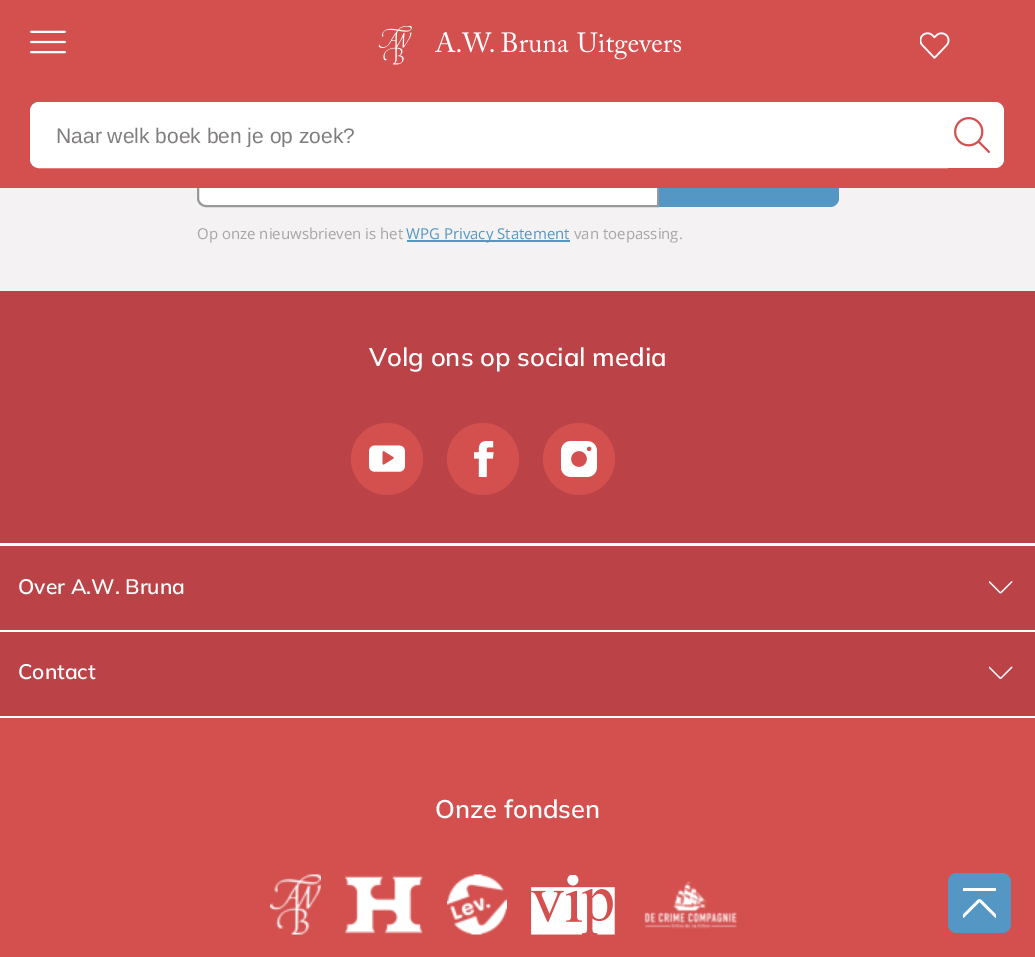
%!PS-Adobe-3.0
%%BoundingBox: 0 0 1035 957
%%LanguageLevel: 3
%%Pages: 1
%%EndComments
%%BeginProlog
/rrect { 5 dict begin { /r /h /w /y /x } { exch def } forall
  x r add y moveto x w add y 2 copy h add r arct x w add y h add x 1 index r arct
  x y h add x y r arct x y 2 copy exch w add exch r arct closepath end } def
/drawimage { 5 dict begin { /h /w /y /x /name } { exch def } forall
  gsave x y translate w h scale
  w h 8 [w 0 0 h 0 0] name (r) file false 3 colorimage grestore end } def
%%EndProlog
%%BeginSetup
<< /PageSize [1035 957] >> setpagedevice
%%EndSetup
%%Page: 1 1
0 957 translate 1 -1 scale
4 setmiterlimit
0.957 0.949 0.949 setrgbcolor
0 0 1035 957 rectfill
1 setgray
newpath 206 148 moveto 658 148 lineto 658 206 lineto 206 206 lineto 201.5 206 198 202.5 198 198 curveto 198 156 lineto 198 151.5 201.5 148 206 148 curveto closepath gsave fill grestore
0.6 setgray
2 setlinewidth
stroke
0.329 0.592 0.773 setrgbcolor
newpath 659 147 moveto 830 147 lineto 835 147 839 151 839 156 curveto 839 198 lineto 839 203 835 207 830 207 curveto 659 207 lineto closepath fill
0.827 0.314 0.31 setrgbcolor
0 0 1035 188 rectfill
(images/1.raw) 30 30 36 24 drawimage
(images/2.raw) 378 26 34 39 drawimage
(images/3.raw) 435 32 246 28 drawimage
(images/4.raw) 920 32 30 27 drawimage
1 setgray
newpath 39 103 moveto 947 103 lineto 947 167 lineto 39 167 lineto 34.5 167 31 163.5 31 159 curveto 31 111 lineto 31 106.5 34.5 103 39 103 curveto closepath gsave fill grestore
stroke
newpath 947 102 moveto 995 102 lineto 1000 102 1004 106 1004 111 curveto 1004 159 lineto 1004 164 1000 168 995 168 curveto 947 168 lineto closepath fill
(images/5.raw) 954 117 36 36 drawimage
0.329 0.592 0.773 setrgbcolor
407 240 163 2 rectfill
0.733 0.263 0.278 setrgbcolor
0 291 1035 425 rectfill
0.827 0.314 0.31 setrgbcolor
newpath 387 459 36 0 360 arc closepath fill
(images/6.raw) 369 445 36 27 drawimage
newpath 483 459 36 0 360 arc closepath fill
(images/7.raw) 474 441 20 36 drawimage
newpath 579 459 36 0 360 arc closepath fill
(images/8.raw) 561 441 36 36 drawimage
1 setgray
0 543 1035 3 rectfill
0 630 1035 2 rectfill
(images/9.raw) 989 581 24 13 drawimage
0 716 1035 2 rectfill
(images/10.raw) 989 666 24 13 drawimage
0.827 0.314 0.31 setrgbcolor
0 718 1035 239 rectfill
(images/11.raw) 270 874 51 61 drawimage
(images/12.raw) 345 875 78 59 drawimage
(images/13.raw) 447 874 60 61 drawimage
(images/14.raw) 531 875 84 60 drawimage
(images/15.raw) 644 881 93 48 drawimage
0.329 0.592 0.773 setrgbcolor
948 873 63 60 9 rrect fill
(images/16.raw) 963 888 33 30 drawimage
gsave
56 123 867 24 rectclip
/LiberationSans-Regular [21 0 0 -21 0 0] selectfont
0.502 0.49 0.49 setrgbcolor
56 143 moveto (Naar welk boek ben je op zoek?) show
grestore
/OpenSans-Regular [15 0 0 -15 0 0] selectfont
0.651 setgray
197 239 moveto (Op onze nieuwsbrieven is het) show
0.329 0.592 0.773 setrgbcolor
406 239 moveto (WPG Privacy Statement) show
0.651 setgray
574 239 moveto (van toepassing.) show
/Mulish-ExtraLight [25.5 0 0 -25.5 0 0] selectfont
1 setgray
369 366 moveto (Volg ons op social media) show
/Mulish-ExtraLight [21 0 0 -21 0 0] selectfont
18 594 moveto (Over A.W. Bruna) show
18 679 moveto (Contact) show
/Mulish-ExtraLight [25.5 0 0 -25.5 0 0] selectfont
435 818 moveto (Onze fondsen) show
showpage
%%EOF
